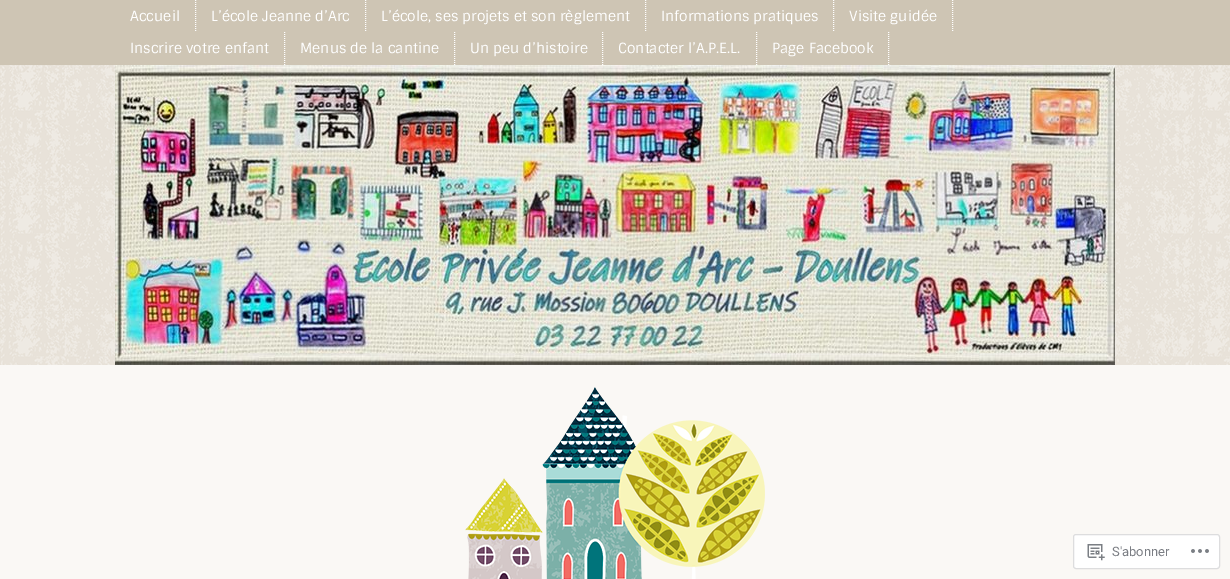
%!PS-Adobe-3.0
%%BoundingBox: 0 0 1230 579
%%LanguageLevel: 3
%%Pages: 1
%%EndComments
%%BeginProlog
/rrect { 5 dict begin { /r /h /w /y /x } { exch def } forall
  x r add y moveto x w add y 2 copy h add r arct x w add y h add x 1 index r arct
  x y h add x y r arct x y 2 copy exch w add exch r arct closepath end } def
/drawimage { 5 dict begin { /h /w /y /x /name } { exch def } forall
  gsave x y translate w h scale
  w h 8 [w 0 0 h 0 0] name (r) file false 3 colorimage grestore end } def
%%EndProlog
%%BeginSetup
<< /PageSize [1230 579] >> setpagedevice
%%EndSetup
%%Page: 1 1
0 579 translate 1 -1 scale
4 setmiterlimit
0.98 0.973 0.961 setrgbcolor
0 0 1230 579 rectfill
0.808 0.773 0.706 setrgbcolor
0 0 1230 65 rectfill
1 setgray
[1 1] 0 setdash
newpath 195.5 0 moveto 195.5 32 lineto stroke
newpath 365.5 0 moveto 365.5 32 lineto stroke
newpath 645.5 0 moveto 645.5 32 lineto stroke
newpath 833.5 0 moveto 833.5 32 lineto stroke
newpath 952.5 0 moveto 952.5 32 lineto stroke
newpath 284.5 32 moveto 284.5 65 lineto stroke
newpath 454.5 32 moveto 454.5 65 lineto stroke
newpath 602.5 32 moveto 602.5 65 lineto stroke
newpath 756.5 32 moveto 756.5 65 lineto stroke
newpath 888.5 32 moveto 888.5 65 lineto stroke
0.875 0.843 0.792 setrgbcolor
0 65 1230 300 rectfill
(images/1.raw) 0 65 1230 300 drawimage
(images/2.raw) 115 65 1000 300 drawimage
(images/3.raw) 465 387 300 192 drawimage
1 setgray
1073.5 534.5 146 34 2.5 rrect gsave fill grestore
0.867 0.867 0.871 setrgbcolor
[] 0 setdash
stroke
(images/4.raw) 1087 544 18 17 drawimage
(images/5.raw) 1191 549 18 4 drawimage
/Sintony-Regular [14 0 0 -14 0 0] selectfont
1 setgray
130 21 moveto (Accueil) show
211 21 moveto (L’école Jeanne d’Arc) show
381 21 moveto (L’école, ses projets et son règlement) show
661 21 moveto (Informations pratiques) show
849 21 moveto (Visite guidée) show
130 53 moveto (Inscrire votre enfant) show
300 53 moveto (Menus de la cantine) show
470 53 moveto (Un peu d’histoire) show
618 53 moveto (Contacter l’A.P.E.L.) show
772 53 moveto (Page Facebook) show
/Roboto-Regular [13 0 0 -13 0 0] selectfont
0.482 0.494 0.518 setrgbcolor
1112 556 moveto (S'abonner) show
showpage
%%EOF
